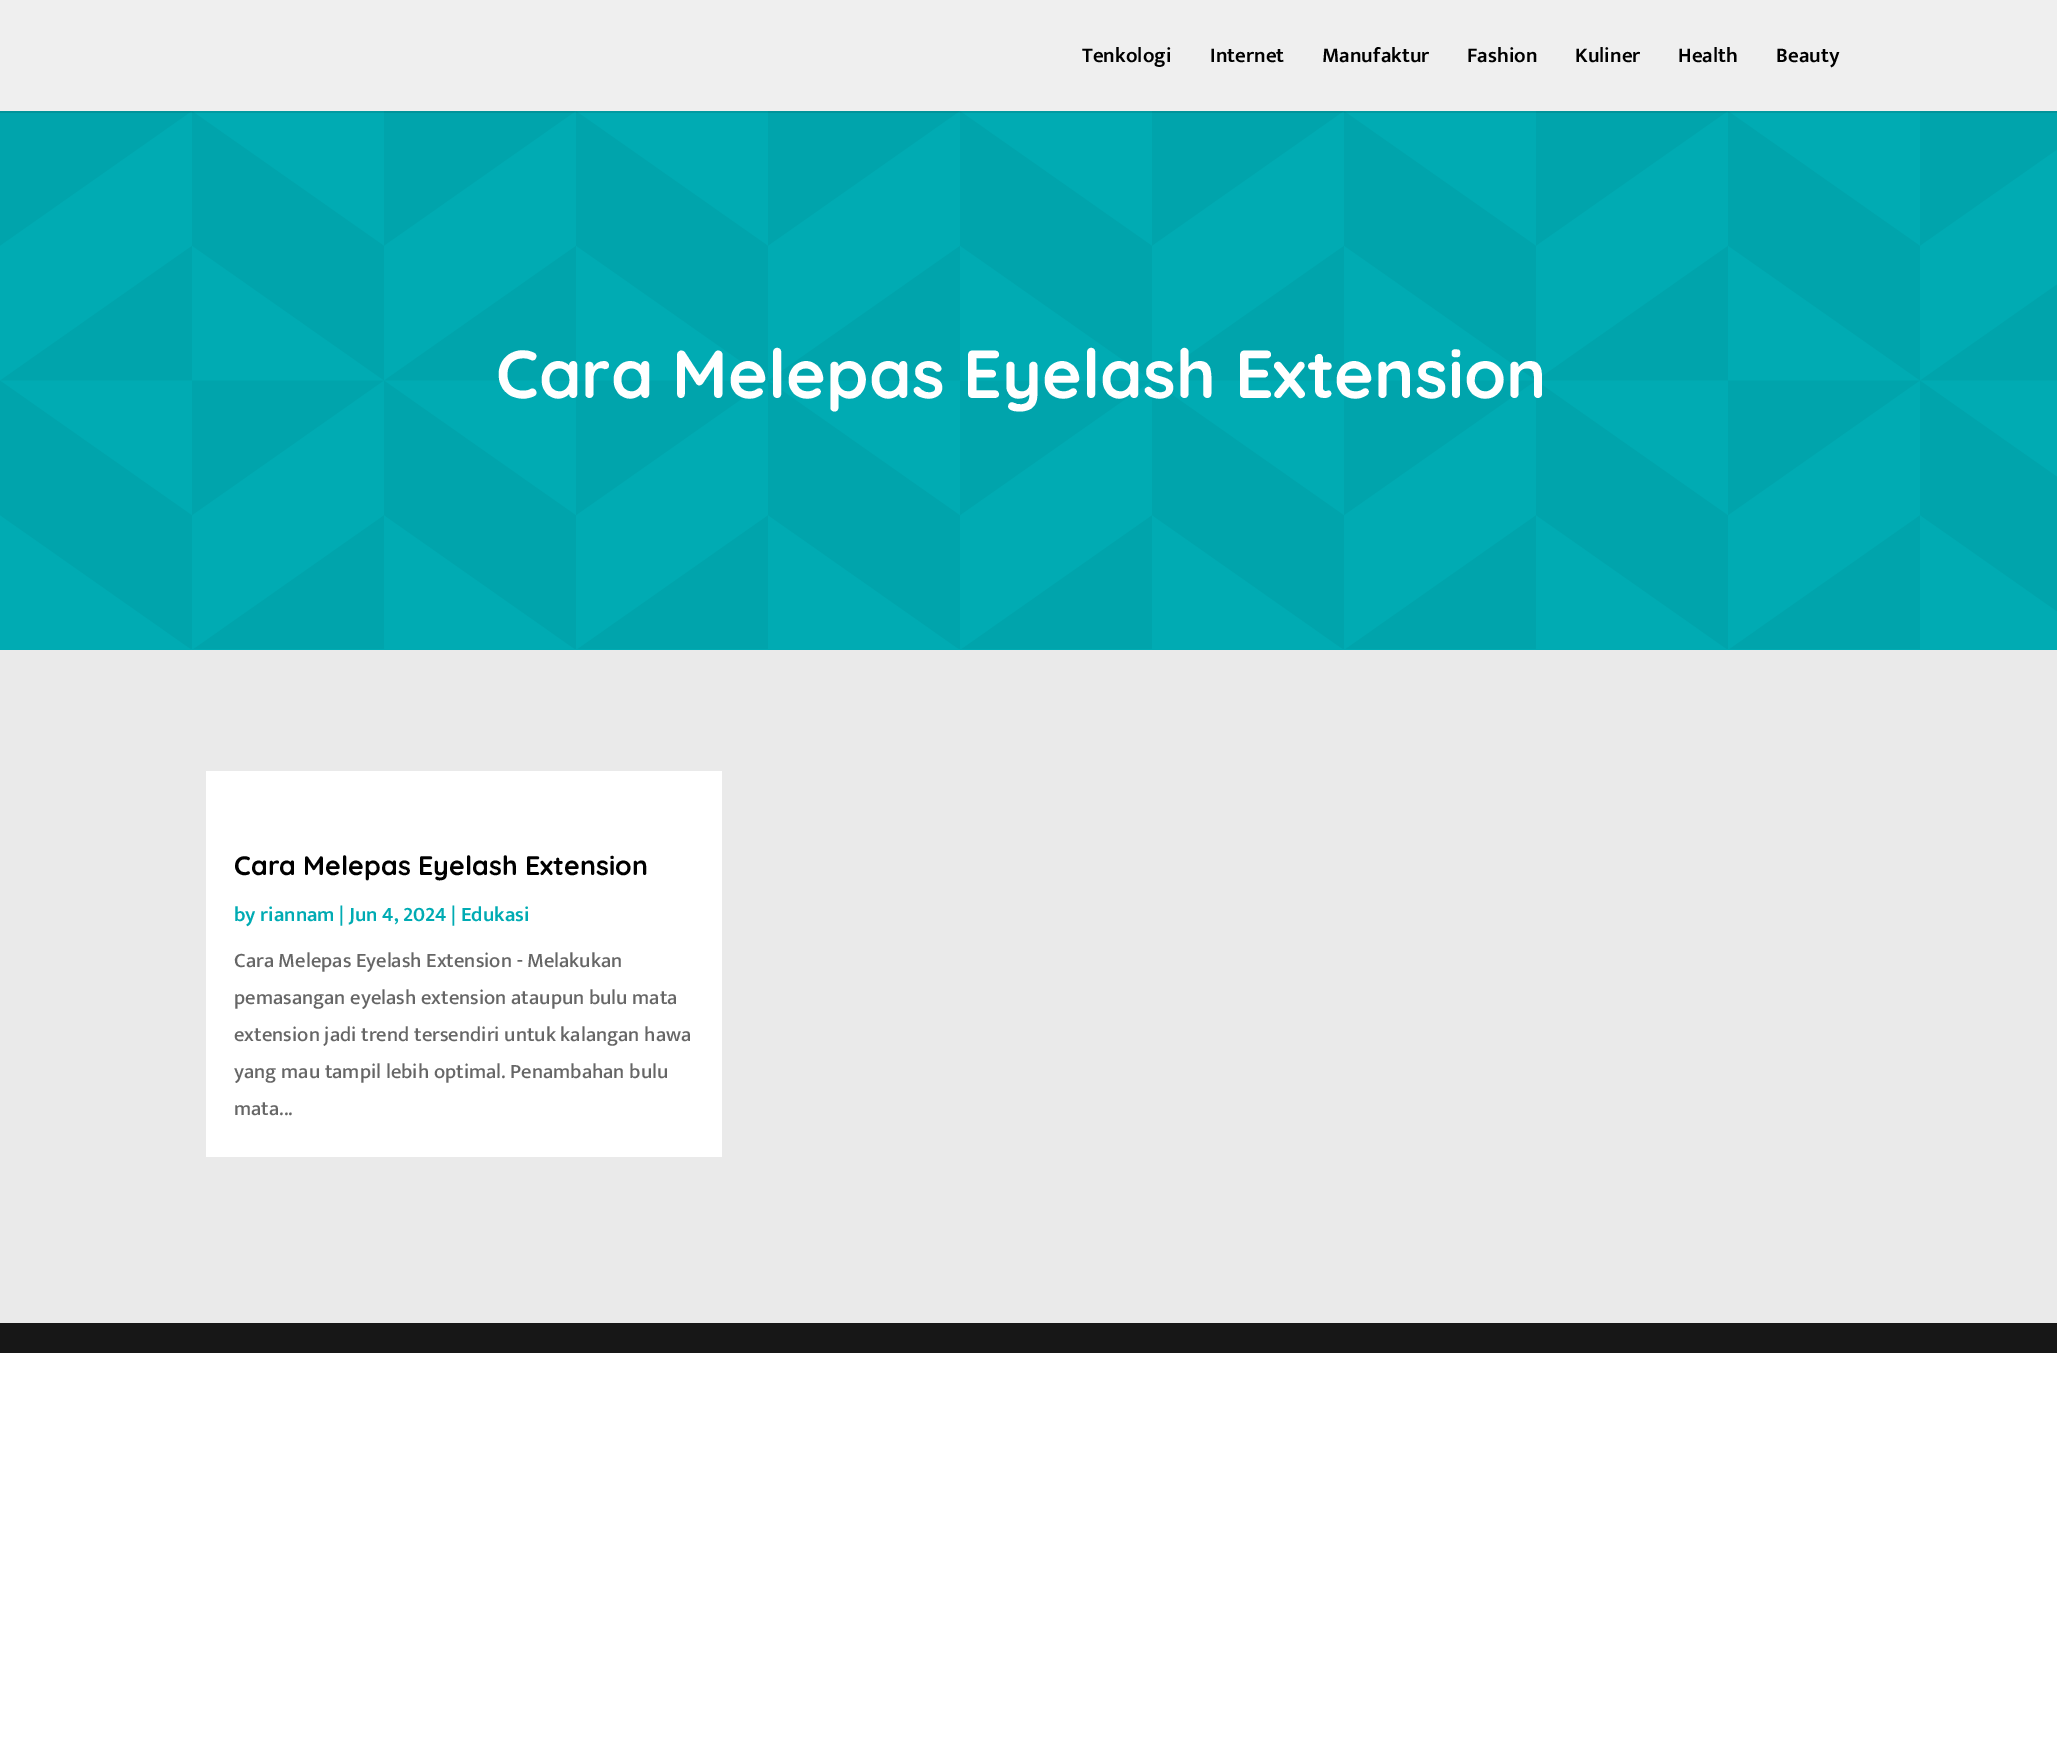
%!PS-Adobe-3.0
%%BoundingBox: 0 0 2057 1762
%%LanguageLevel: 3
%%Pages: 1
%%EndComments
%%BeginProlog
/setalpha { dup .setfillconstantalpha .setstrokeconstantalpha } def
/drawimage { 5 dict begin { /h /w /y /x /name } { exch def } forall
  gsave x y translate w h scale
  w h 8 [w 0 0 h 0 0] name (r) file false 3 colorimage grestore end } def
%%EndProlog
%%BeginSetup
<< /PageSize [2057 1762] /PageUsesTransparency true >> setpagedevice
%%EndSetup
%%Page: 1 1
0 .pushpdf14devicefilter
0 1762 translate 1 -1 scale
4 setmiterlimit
1 setgray
0 0 2057 1762 rectfill
0 0.671 0.702 setrgbcolor
0 111 2057 539 rectfill
(images/1.raw) 0 111 2057 538 drawimage
0.1 setalpha
0 setgray
0 111 2057 2 rectfill
1 setalpha
0.937 setgray
0 0 2057 111 rectfill
0.918 setgray
0 650 2057 673 rectfill
1 setgray
206 771 516 386 rectfill
0.09 setgray
0 1323 2057 30 rectfill
/Mukta-SemiBold [21 0 0 -21 0 0] selectfont
0 setgray
1082 62 moveto (Tenkologi) show
1210 62 moveto (Internet) show
1322 62 moveto (Manufaktur) show
1467 62 moveto (Fashion) show
1575 62 moveto (Kuliner) show
1678 62 moveto (Health) show
1776 62 moveto (Beauty) show
/Quicksand-Bold [67.9 0 0 -67.9 0 0] selectfont
1 setgray
496 398 moveto (Cara Melepas Eyelash Extension) show
/Quicksand-Bold [26.75 0 0 -26.75 0 0] selectfont
0 setgray
234 875 moveto (Cara Melepas Eyelash Extension) show
/Mukta-SemiBold [20.6 0 0 -20.6 0 0] selectfont
0 0.671 0.702 setrgbcolor
234 921 moveto (by riannam | Jun 4, 2024 | Edukasi) show
/Mukta-Medium [20.6 0 0 -20.6 0 0] selectfont
0.4 setgray
234 967 moveto (Cara Melepas Eyelash Extension - Melakukan) show
234 1004 moveto (pemasangan eyelash extension ataupun bulu mata) show
234 1041 moveto (extension jadi trend tersendiri untuk kalangan hawa) show
234 1078 moveto (yang mau tampil lebih optimal. Penambahan bulu) show
234 1115 moveto (mata...) show
.poppdf14devicefilter showpage
%%EOF
